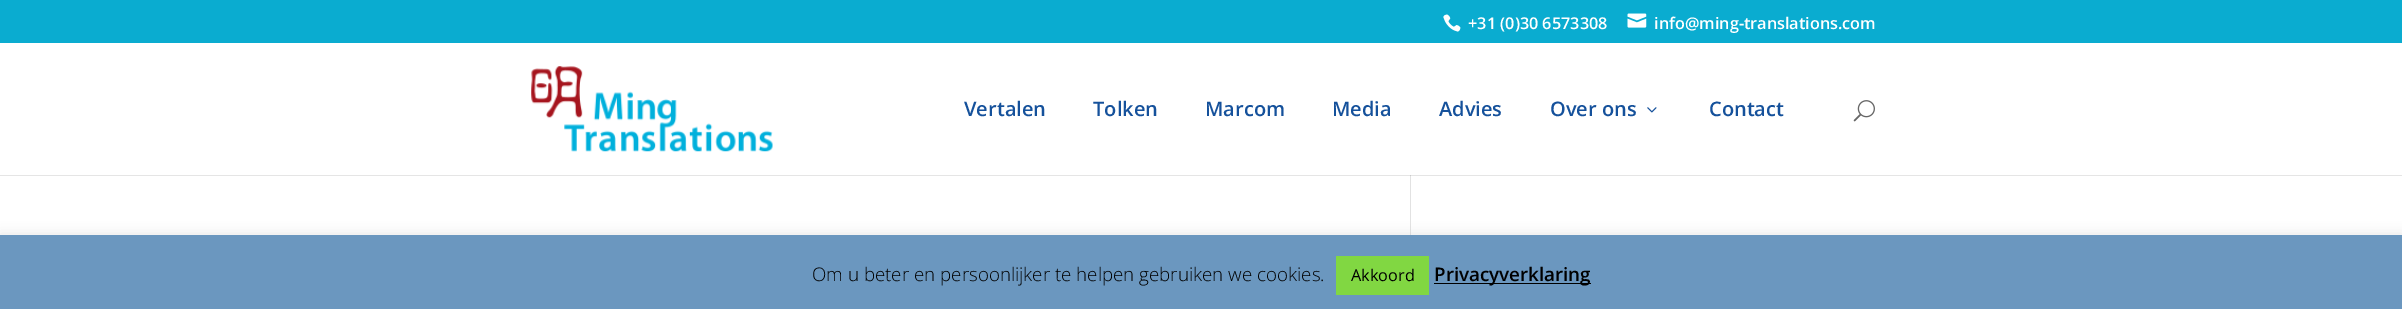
%!PS-Adobe-3.0
%%BoundingBox: 0 0 2402 309
%%LanguageLevel: 3
%%Pages: 1
%%EndComments
%%BeginProlog
/setalpha { dup .setfillconstantalpha .setstrokeconstantalpha } def
/rrect { 5 dict begin { /r /h /w /y /x } { exch def } forall
  x r add y moveto x w add y 2 copy h add r arct x w add y h add x 1 index r arct
  x y h add x y r arct x y 2 copy exch w add exch r arct closepath end } def
/softshadow { 12 dict begin { /a /b /q /h /w /y /x } { exch def } forall gsave /was 0 def
  9 -2 -9 { dup b mul 4 div /e exch def 1 sub .425 mul 2.718 exch exp 1 add a .99 .min exch div /now exch def
    1 1 now sub 1 was sub div sub setalpha /was now def
    w h .min e 2 mul add 0 gt { x e sub y e sub w e 2 mul add h e 2 mul add
      q e add b .6 mul add w h .min 2 div e add .min 0 .max rrect fill } if } for grestore end } def
/drawimage { 5 dict begin { /h /w /y /x /name } { exch def } forall
  gsave x y translate w h scale
  w h 8 [w 0 0 h 0 0] name (r) file false 3 colorimage grestore end } def
%%EndProlog
%%BeginSetup
<< /PageSize [2402 309] /PageUsesTransparency true >> setpagedevice
%%EndSetup
%%Page: 1 1
0 .pushpdf14devicefilter
0 309 translate 1 -1 scale
4 setmiterlimit
1 setgray
0 0 2402 309 rectfill
0.039 0.675 0.816 setrgbcolor
0 0 2402 43 rectfill
(images/1.raw) 1443 14 18 18 drawimage
(images/2.raw) 1627 13 20 15 drawimage
0.886 setgray
1410 175 1 60 rectfill
0.1 setalpha
0 setgray
newpath 0 175 moveto 0 176 lineto 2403 176 lineto 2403 44 lineto 2402 44 lineto 2402 175 lineto closepath fill
1 setalpha
(images/3.raw) 531 66 242 86 drawimage
(images/4.raw) 1647 107 10 6 drawimage
(images/5.raw) 1853 100 22 22 drawimage
0.675 0.671 0.671 setrgbcolor
0 234 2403 75 0 6 0.3 softshadow
0.42 0.592 0.749 setrgbcolor
0 235 2402 74 rectfill
0.506 0.843 0.259 setrgbcolor
1336 256 93 39 rectfill
0 setgray
1434 283 157 1 rectfill
/OpenSans-SemiBold [16.25 0 0 -16.25 0 0] selectfont
1 setgray
1468 29 moveto (+31 \(0\)30 6573308) show
1654 29 moveto (info@ming-translations.com) show
/OpenSans-SemiBold [20 0 0 -20 0 0] selectfont
0.082 0.318 0.608 setrgbcolor
964 116 moveto (Vertalen) show
1093 116 moveto (Tolken) show
1205 116 moveto (Marcom) show
1332 116 moveto (Media) show
1439 116 moveto (Advies) show
1550 116 moveto (Over ons) show
1709 116 moveto (Contact) show
/OpenSans-Light [18.75 0 0 -18.75 0 0] selectfont
0 setgray
812 281 moveto (Om u beter en persoonlijker te helpen gebruiken we cookies.) show
/OpenSans-Regular [16.25 0 0 -16.25 0 0] selectfont
1351 281 moveto (Akkoord) show
/OpenSans-SemiBold [18.75 0 0 -18.75 0 0] selectfont
1434 281 moveto (Privacyverklaring) show
.poppdf14devicefilter showpage
%%EOF
